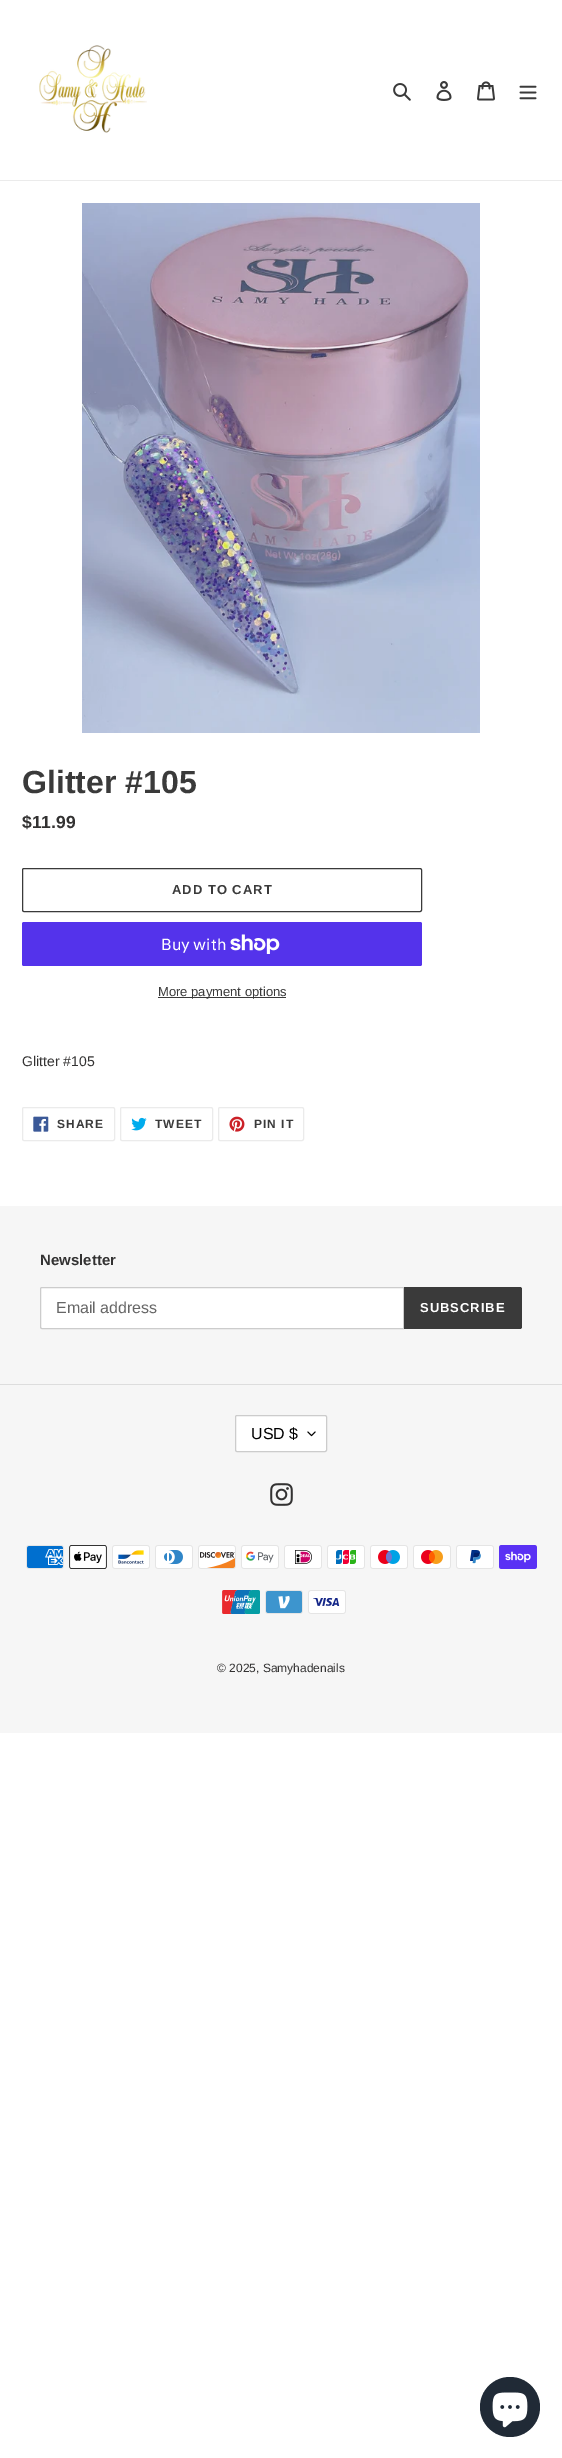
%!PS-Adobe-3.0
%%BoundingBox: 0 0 562 2458
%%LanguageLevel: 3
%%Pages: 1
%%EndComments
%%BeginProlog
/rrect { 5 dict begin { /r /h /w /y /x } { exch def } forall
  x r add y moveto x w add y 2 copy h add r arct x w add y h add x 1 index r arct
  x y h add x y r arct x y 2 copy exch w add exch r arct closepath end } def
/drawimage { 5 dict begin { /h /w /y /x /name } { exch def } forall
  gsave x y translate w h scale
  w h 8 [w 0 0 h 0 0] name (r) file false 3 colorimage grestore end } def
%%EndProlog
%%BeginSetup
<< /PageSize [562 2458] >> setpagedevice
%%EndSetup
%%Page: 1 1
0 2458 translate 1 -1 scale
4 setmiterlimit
1 setgray
0 0 562 2458 rectfill
0.922 setgray
0 180 562 1 rectfill
(images/1.raw) 39 45 108 88 drawimage
(images/2.raw) 393 83 18 18 drawimage
(images/3.raw) 436 81 16 20 drawimage
(images/4.raw) 477 81 18 20 drawimage
(images/5.raw) 519 85 18 15 drawimage
(images/6.raw) 82 203 398 530 drawimage
0.227 setgray
22.5 868.5 399 43 1.5 rrect stroke
0.329 0.2 0.922 setrgbcolor
22 922 400 44 2 rrect fill
(images/7.raw) 230 934 50 20 drawimage
0.227 setgray
158 997 128 1 rectfill
0.922 setgray
22.5 1107.5 92 33 1.5 rrect stroke
(images/8.raw) 33 1116 16 16 drawimage
120.5 1107.5 92 33 1.5 rrect stroke
(images/9.raw) 131 1117 16 14 drawimage
218.5 1107.5 85 33 1.5 rrect stroke
(images/10.raw) 229 1116 16 16 drawimage
0.965 setgray
0 1206 562 527 rectfill
1 setgray
newpath 42 1287.5 moveto 403.5 1287.5 lineto 403.5 1328.5 lineto 42 1328.5 lineto 41 1328.5 40.5 1328 40.5 1327 curveto 40.5 1289 lineto 40.5 1288 41 1287.5 42 1287.5 curveto closepath gsave fill grestore
0.8 setgray
stroke
0.227 setgray
newpath 404 1287 moveto 520 1287 lineto 521 1287 522 1288 522 1289 curveto 522 1327 lineto 522 1328 521 1329 520 1329 curveto 404 1329 lineto closepath fill
0.867 setgray
0 1384 562 1 rectfill
1 setgray
235 1415 92 37 2 rrect fill
(images/11.raw) 307 1431 9 6 drawimage
0.8 setgray
235.5 1415.5 91 36 1.5 rrect stroke
(images/12.raw) 270 1483 23 23 drawimage
(images/13.raw) 26 1545 38 24 drawimage
(images/14.raw) 69 1545 38 24 drawimage
(images/15.raw) 112 1545 38 24 drawimage
(images/16.raw) 155 1545 38 24 drawimage
(images/17.raw) 198 1545 38 24 drawimage
(images/18.raw) 241 1545 38 24 drawimage
(images/19.raw) 284 1545 38 24 drawimage
(images/20.raw) 327 1545 38 24 drawimage
(images/21.raw) 370 1545 38 24 drawimage
(images/22.raw) 413 1545 38 24 drawimage
(images/23.raw) 456 1545 38 24 drawimage
(images/24.raw) 499 1545 38 24 drawimage
(images/25.raw) 222 1590 38 24 drawimage
(images/26.raw) 265 1590 38 24 drawimage
(images/27.raw) 308 1590 38 24 drawimage
0.125 0.165 0.212 setrgbcolor
newpath 510 2407 30 0 360 arc closepath fill
(images/28.raw) 492 2392 36 36 drawimage
/LiberationSans-Bold [32 0 0 -32 0 0] selectfont
0.227 setgray
22 793 moveto (Glitter #105) show
/LiberationSans-Bold [17.5 0 0 -17.5 0 0] selectfont
0.2 0.196 0.196 setrgbcolor
22 828 moveto ($11.99) show
/LiberationSans-Bold [13 0 0 -13 0 0] selectfont
0.227 setgray
172 894 moveto 1 0 (ADD TO CART) ashow
/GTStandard-Regular [16 0 0 -16 0 0] selectfont
1 setgray
161 950 moveto (Buy with) show
/LiberationSans-Regular [13 0 0 -13 0 0] selectfont
0.227 setgray
158 996 moveto (More payment options) show
/LiberationSans-Regular [14 0 0 -14 0 0] selectfont
0.2 0.196 0.196 setrgbcolor
22 1066 moveto (Glitter #105) show
/LiberationSans-Bold [12 0 0 -12 0 0] selectfont
0.227 setgray
57 1128 moveto 1 0 (SHARE) ashow
155 1128 moveto 1 0 (TWEET) ashow
254 1128 moveto 1 0 (PIN IT) ashow
/LiberationSans-Bold [15 0 0 -15 0 0] selectfont
0.2 0.196 0.196 setrgbcolor
40 1265 moveto (Newsletter) show
/LiberationSans-Regular [16 0 0 -16 0 0] selectfont
0.4 setgray
56 1313 moveto (Email address) show
/LiberationSans-Bold [13 0 0 -13 0 0] selectfont
1 setgray
420 1312 moveto 1 0 (SUBSCRIBE) ashow
/LiberationSans-Regular [16 0 0 -16 0 0] selectfont
0 setgray
251 1439 moveto (USD $) show
/LiberationSans-Regular [12 0 0 -12 0 0] selectfont
0.2 0.196 0.196 setrgbcolor
217 1672 moveto (© 2025, Samyhadenails) show
showpage
%%EOF
